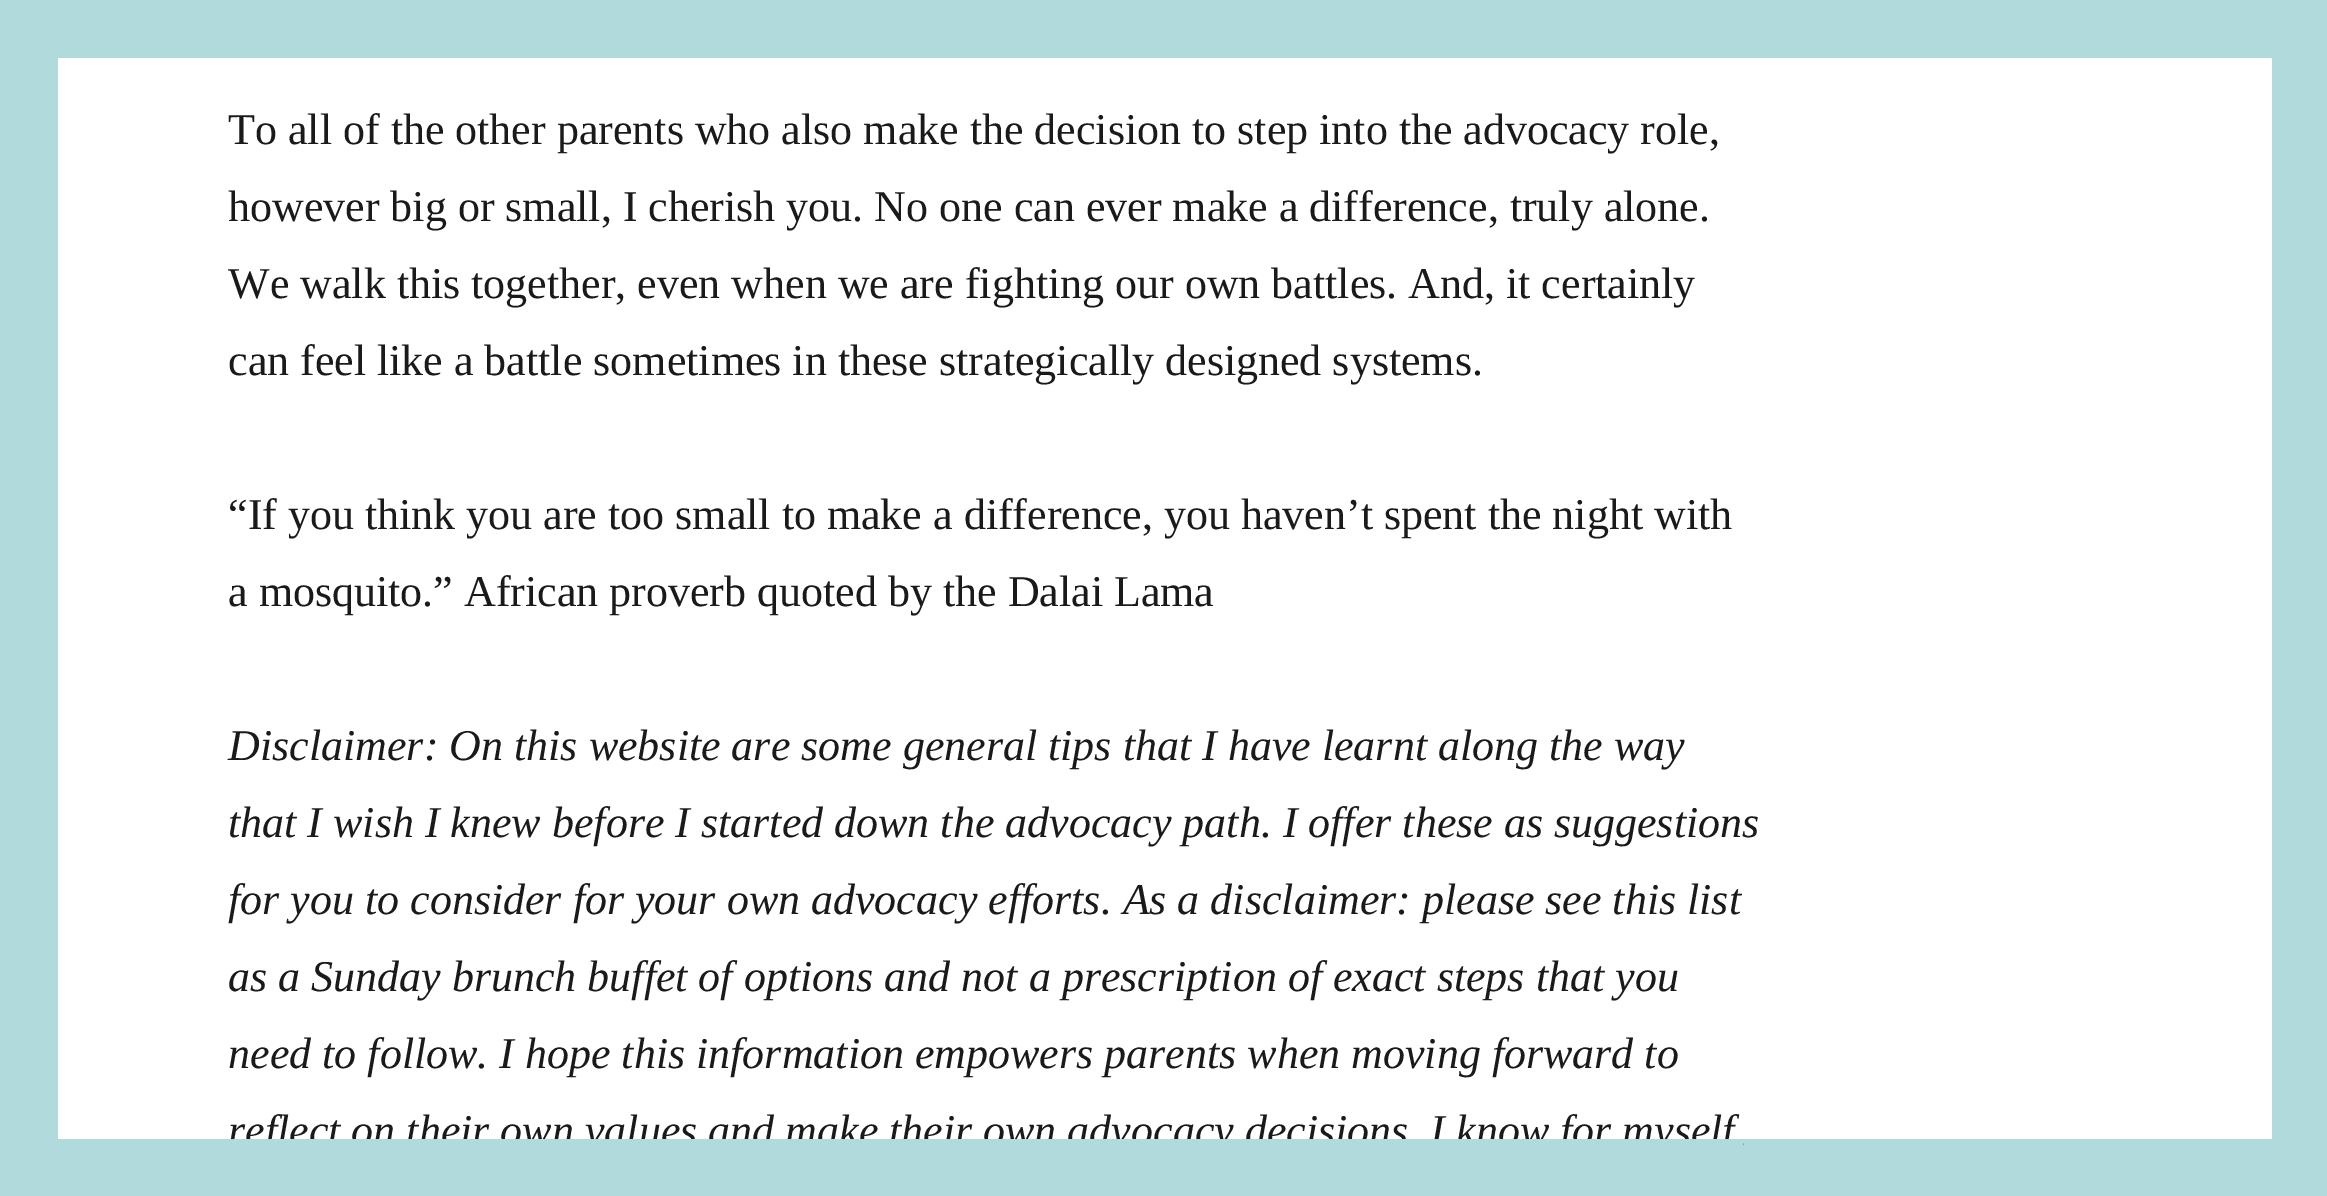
%!PS-Adobe-3.0
%%BoundingBox: 0 0 2327 1196
%%LanguageLevel: 3
%%Pages: 1
%%EndComments
%%BeginProlog
%%EndProlog
%%BeginSetup
<< /PageSize [2327 1196] >> setpagedevice
%%EndSetup
%%Page: 1 1
0 1196 translate 1 -1 scale
4 setmiterlimit
0.694 0.855 0.867 setrgbcolor
0 0 2327 1196 rectfill
1 setgray
58 58 2214 1081 rectfill
/LiberationSerif-Regular [44 0 0 -44 0 0] selectfont
0.102 setgray
228 144 moveto (To all of the other parents who also make the decision to step into the advocacy role,) show
228 221 moveto (however big or small, I cherish you. No one can ever make a difference, truly alone.) show
228 298 moveto (We walk this together, even when we are fighting our own battles. And, it certainly) show
228 375 moveto (can feel like a battle sometimes in these strategically designed systems.) show
228 529 moveto (“If you think you are too small to make a difference, you haven’t spent the night with) show
228 606 moveto (a mosquito.” African proverb quoted by the Dalai Lama) show
/LiberationSerif-Italic [44 0 0 -44 0 0] selectfont
228 760 moveto (Disclaimer: On this website are some general tips that I have learnt along the way) show
228 837 moveto (that I wish I knew before I started down the advocacy path. I offer these as suggestions) show
228 914 moveto (for you to consider for your own advocacy efforts. As a disclaimer: please see this list) show
228 991 moveto (as a Sunday brunch buffet of options and not a prescription of exact steps that you) show
228 1068 moveto (need to follow. I hope this information empowers parents when moving forward to) show
228 1145 moveto (reflect on their own values and make their own advocacy decisions. I know for myself,) show
0.694 0.855 0.867 setrgbcolor
229 1139 1514 16 rectfill
showpage
%%EOF
